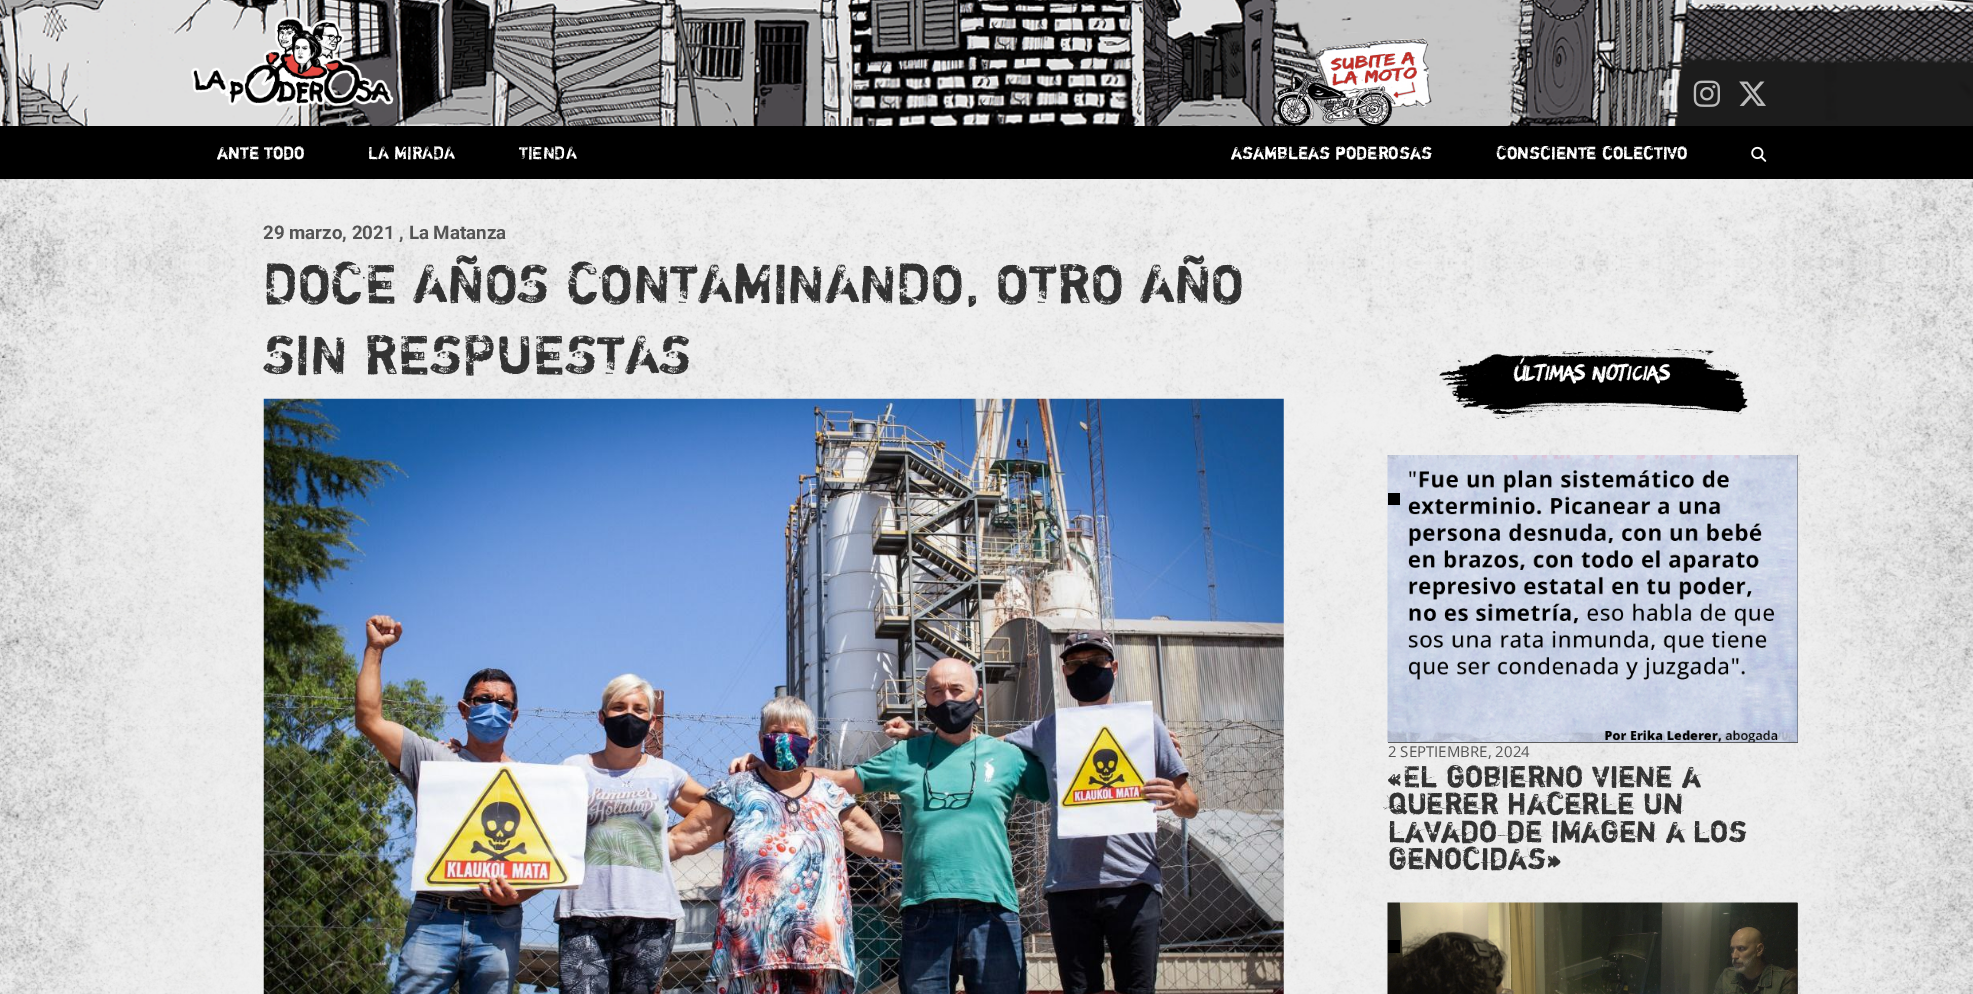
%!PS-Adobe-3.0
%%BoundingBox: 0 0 1973 994
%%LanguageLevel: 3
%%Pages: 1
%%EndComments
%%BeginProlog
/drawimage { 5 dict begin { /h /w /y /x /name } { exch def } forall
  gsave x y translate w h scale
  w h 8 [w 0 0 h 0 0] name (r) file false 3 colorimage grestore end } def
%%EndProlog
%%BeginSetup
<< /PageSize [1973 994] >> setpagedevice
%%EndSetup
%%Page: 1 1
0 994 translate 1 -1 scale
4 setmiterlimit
1 setgray
0 0 1973 994 rectfill
(images/1.raw) 0 179 1973 815 drawimage
(images/2.raw) 0 0 1973 126 drawimage
(images/3.raw) 190 16 204 91 drawimage
(images/4.raw) 1276 32 156 94 drawimage
(images/5.raw) 1658 78 17 31 drawimage
(images/6.raw) 1693 80 27 27 drawimage
(images/7.raw) 1739 81 27 25 drawimage
0 setgray
0 126 1973 53 rectfill
(images/8.raw) 1751 146 16 16 drawimage
(images/9.raw) 263 398 1021 596 drawimage
(images/10.raw) 1437 343 311 78 drawimage
0.333 setgray
1388 455 410 288 rectfill
(images/11.raw) 1387 455 411 288 drawimage
0 setgray
1388 493 12 12 rectfill
0.333 setgray
1797 903 1 91 rectfill
(images/12.raw) 1387 902 411 92 drawimage
0 setgray
1388 940 12 13 rectfill
/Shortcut-Regular [17.5 0 0 -17.5 0 0] selectfont
1 setgray
217 159 moveto (ante todo) show
368 159 moveto (LA MIRADA) show
519 159 moveto (TIENDA) show
1231 159 moveto (asambleas poderosas) show
1496 159 moveto (Consciente colectivo) show
/Roboto-Bold [18.75 0 0 -18.75 0 0] selectfont
0.333 setgray
263 239 moveto (29 marzo, 2021 , La Matanza) show
/Shortcut-Regular [55 0 0 -55 0 0] selectfont
0.2 setgray
263 303 moveto (DOCE AÑOS CONTAMINANDO, OTRO AÑO) show
263 374 moveto (SIN RESPUESTAS) show
/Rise-Regular [22.5 0 0 -22.5 0 0] selectfont
1 setgray
1514 380 moveto (Últimas noticias) show
/OpenSans-Regular [15 0 0 -15 0 0] selectfont
0.333 setgray
1388 757 moveto (2 SEPTIEMBRE, 2024) show
/Shortcut-Regular [30 0 0 -30 0 0] selectfont
0.2 setgray
1388 787 moveto («El gobierno viene a) show
1388 814 moveto (querer hacerle un) show
1388 842 moveto (lavado de imagen a los) show
1388 869 moveto (genocidas») show
showpage
%%EOF
